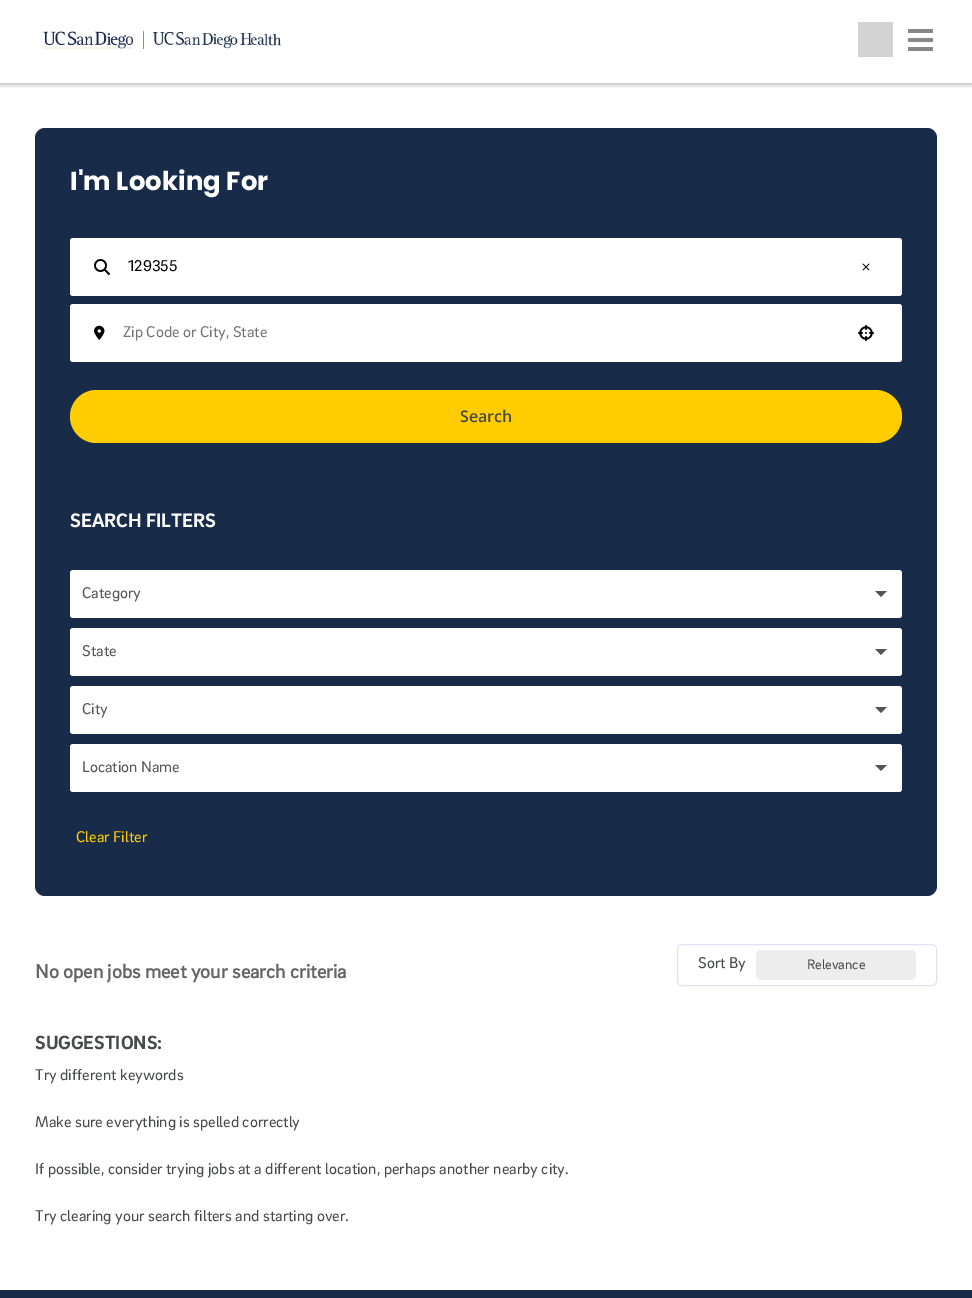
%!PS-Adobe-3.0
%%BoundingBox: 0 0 972 1298
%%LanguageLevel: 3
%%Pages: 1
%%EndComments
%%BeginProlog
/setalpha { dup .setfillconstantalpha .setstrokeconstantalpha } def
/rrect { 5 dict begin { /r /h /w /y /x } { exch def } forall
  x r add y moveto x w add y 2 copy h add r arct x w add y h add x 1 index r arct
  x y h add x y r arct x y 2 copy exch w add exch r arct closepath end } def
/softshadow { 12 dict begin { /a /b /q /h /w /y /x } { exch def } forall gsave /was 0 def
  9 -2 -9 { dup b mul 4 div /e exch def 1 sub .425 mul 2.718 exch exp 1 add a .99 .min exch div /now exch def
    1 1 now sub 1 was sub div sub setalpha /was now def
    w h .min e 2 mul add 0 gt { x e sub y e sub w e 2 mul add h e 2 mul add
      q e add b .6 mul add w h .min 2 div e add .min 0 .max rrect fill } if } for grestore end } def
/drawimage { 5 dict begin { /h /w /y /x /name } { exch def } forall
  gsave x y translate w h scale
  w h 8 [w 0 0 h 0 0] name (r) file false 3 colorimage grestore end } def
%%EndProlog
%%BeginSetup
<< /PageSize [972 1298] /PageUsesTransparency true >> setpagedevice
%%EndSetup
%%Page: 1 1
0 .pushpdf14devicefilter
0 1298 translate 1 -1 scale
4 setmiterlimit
1 setgray
0 0 972 1298 rectfill
gsave
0 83 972 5 rectclip
0 setgray
0 2 972 83 0 2.5 0.25 softshadow
grestore
(images/1.raw) 43 30 239 19 drawimage
0.827 setgray
858 22 35 35 rectfill
0.533 setgray
908 29 25 4 1 rrect fill
908 38 25 4 1 rrect fill
908 47 25 4 1 rrect fill
0.094 0.169 0.282 setrgbcolor
35 128 902 768 10 rrect fill
1 setgray
70 238 832 58 3 rrect fill
(images/2.raw) 94 259 16 16 drawimage
(images/3.raw) 862 263 8 8 drawimage
70 304 832 58 3 rrect fill
(images/4.raw) 94 325 11 15 drawimage
(images/5.raw) 858 325 16 16 drawimage
1 0.804 0 setrgbcolor
70 390 832 53 26.5 rrect fill
1 setgray
70 570 832 48 3 rrect fill
0.333 setgray
newpath 875 591 moveto 887 591 lineto 881 597 lineto closepath fill
1 setgray
70 628 832 48 3 rrect fill
0.333 setgray
newpath 875 649 moveto 887 649 lineto 881 655 lineto closepath fill
1 setgray
70 686 832 48 3 rrect fill
0.333 setgray
newpath 875 707 moveto 887 707 lineto 881 713 lineto closepath fill
1 setgray
70 744 832 48 3 rrect fill
0.333 setgray
newpath 875 765 moveto 887 765 lineto 881 771 lineto closepath fill
0.882 0.886 0.965 setrgbcolor
677.5 944.5 259 41 4.5 rrect stroke
0.929 setgray
756 950 160 30 5 rrect fill
0.094 0.169 0.286 setrgbcolor
0 1290 972 8 rectfill
/Poppins-Bold [26 0 0 -26 0 0] selectfont
1 setgray
70 190 moveto (I'm Looking For) show
/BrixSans-Regular [16 0 0 -16 0 0] selectfont
0 setgray
128 271 moveto (129355) show
0.459 setgray
123 337 moveto (Zip Code or City, State) show
/OpenSans-SemiBold [16 0 0 -16 0 0] selectfont
0.282 0.286 0.286 setrgbcolor
460 422 moveto (Search) show
/BrixSans-Bold [20 0 0 -20 0 0] selectfont
1 setgray
70 527 moveto (SEARCH FILTERS) show
/BrixSans-Regular [16 0 0 -16 0 0] selectfont
0.333 setgray
82 598 moveto (Category) show
82 656 moveto (State) show
82 714 moveto (City) show
82 772 moveto (Location Name) show
1 0.804 0 setrgbcolor
76 842 moveto (Clear Filter) show
/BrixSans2-Bold [20 0 0 -20 0 0] selectfont
0.4 setgray
35 978 moveto (No open jobs meet your search criteria) show
/BrixSans-Regular [16 0 0 -16 0 0] selectfont
0.282 0.286 0.286 setrgbcolor
698 968 moveto (Sort By) show
/BrixSans-Regular [14 0 0 -14 0 0] selectfont
807 969 moveto (Relevance) show
/BrixSans-Bold [19.5 0 0 -19.5 0 0] selectfont
35 1049 moveto (SUGGESTIONS:) show
/BrixSans-Regular [16 0 0 -16 0 0] selectfont
35 1080 moveto (Try different keywords) show
35 1127 moveto (Make sure everything is spelled correctly) show
35 1174 moveto (If possible, consider trying jobs at a different location, perhaps another nearby city.) show
35 1221 moveto (Try clearing your search filters and starting over.) show
.poppdf14devicefilter showpage
%%EOF
